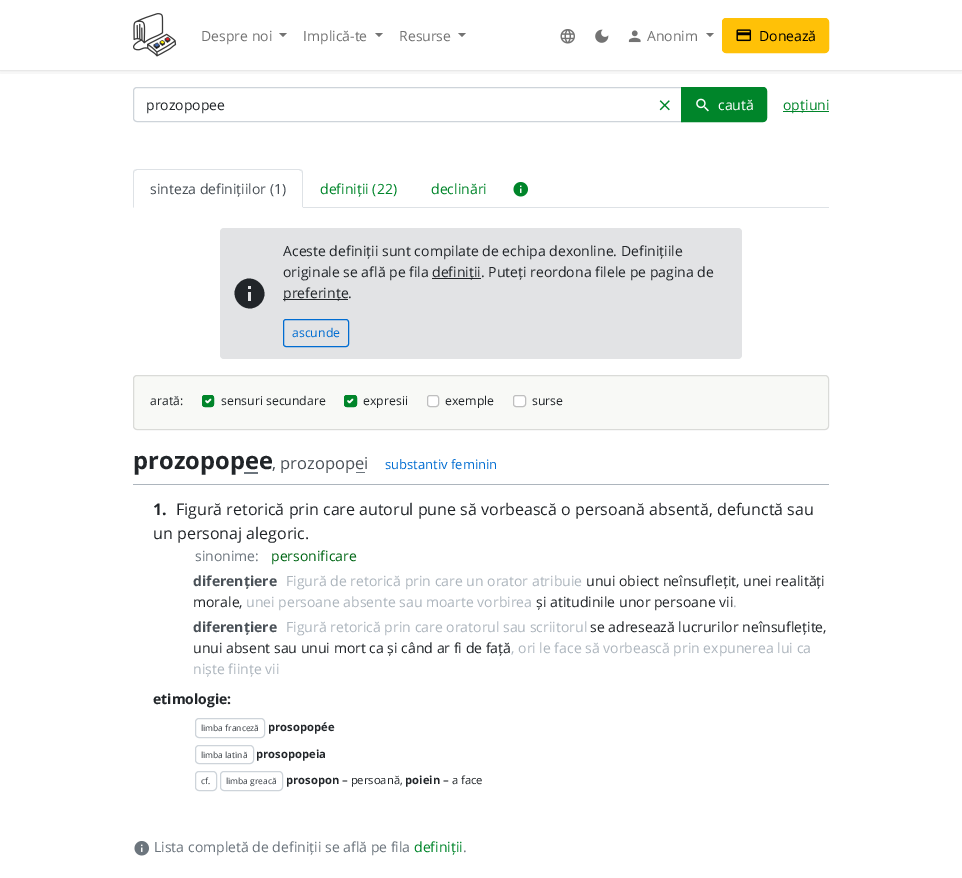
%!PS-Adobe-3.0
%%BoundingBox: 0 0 962 878
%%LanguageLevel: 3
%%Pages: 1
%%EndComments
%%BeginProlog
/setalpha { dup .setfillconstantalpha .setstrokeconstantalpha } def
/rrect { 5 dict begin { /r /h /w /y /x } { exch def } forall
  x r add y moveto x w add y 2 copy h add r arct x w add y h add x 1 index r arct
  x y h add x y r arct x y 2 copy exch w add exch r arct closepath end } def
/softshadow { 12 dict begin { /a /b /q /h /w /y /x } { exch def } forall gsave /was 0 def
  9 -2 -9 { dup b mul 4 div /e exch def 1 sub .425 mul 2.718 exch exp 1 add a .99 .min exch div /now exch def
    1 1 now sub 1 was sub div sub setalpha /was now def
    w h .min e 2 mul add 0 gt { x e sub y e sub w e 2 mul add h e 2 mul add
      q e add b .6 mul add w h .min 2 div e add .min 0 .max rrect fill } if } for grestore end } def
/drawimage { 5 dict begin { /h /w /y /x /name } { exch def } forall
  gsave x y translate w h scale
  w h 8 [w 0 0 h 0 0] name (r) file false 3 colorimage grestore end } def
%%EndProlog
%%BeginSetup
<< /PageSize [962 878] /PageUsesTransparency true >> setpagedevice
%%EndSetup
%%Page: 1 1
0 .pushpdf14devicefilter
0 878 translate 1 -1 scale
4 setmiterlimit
1 setgray
0 0 962 878 rectfill
gsave
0 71 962 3 rectclip
0 setgray
0 0 962 71 0 4 0.1 softshadow
grestore
0.91 setgray
0 70 962 1 rectfill
(images/1.raw) 133 13 44 44 drawimage
0.451 setgray
newpath 279 33 moveto 287 33 lineto 283 37 lineto closepath fill
newpath 375 33 moveto 383 33 lineto 379 37 lineto closepath fill
newpath 458 33 moveto 466 33 lineto 462 37 lineto closepath fill
(images/2.raw) 560 29 15 15 drawimage
(images/3.raw) 595 29 14 14 drawimage
(images/4.raw) 628 30 13 13 drawimage
newpath 706 33 moveto 714 33 lineto 710 37 lineto closepath fill
1 0.757 0.027 setrgbcolor
722.5 18.5 106 34 3.5 rrect gsave fill grestore
stroke
(images/5.raw) 736 29 16 13 drawimage
0.808 0.831 0.855 setrgbcolor
newpath 137 87.5 moveto 682.5 87.5 lineto 682.5 121.5 lineto 137 121.5 lineto 135 121.5 133.5 120 133.5 118 curveto 133.5 91 lineto 133.5 89 135 87.5 137 87.5 curveto closepath stroke
(images/6.raw) 659 100 11 11 drawimage
0 0.522 0.165 setrgbcolor
newpath 681.5 87.5 moveto 763 87.5 lineto 765 87.5 766.5 89 766.5 91 curveto 766.5 118 lineto 766.5 120 765 121.5 763 121.5 curveto 681.5 121.5 lineto closepath gsave fill grestore
stroke
(images/7.raw) 696 98 13 14 drawimage
783 111 46 1 rectfill
0.871 0.886 0.902 setrgbcolor
303 207 526 1 rectfill
newpath 137 169 moveto 134 170 lineto 135 171 lineto 137 170 lineto 299 170 lineto 301 171 lineto 302 170 lineto 299 169 lineto closepath fill
newpath 303 208 moveto 303 173 lineto 303 172 302.5 171 302 170 curveto 301 171 lineto 302 171 302 172 302 173 curveto 302 207 lineto closepath fill
1 setgray
newpath 303 208 moveto 302 207 lineto 134 207 lineto 133 208 lineto closepath fill
0.871 0.886 0.902 setrgbcolor
newpath 133 208 moveto 134 207 lineto 134 173 lineto 134 172 134 171 135 171 curveto 134 170 lineto 133.5 171 133 172 133 173 curveto closepath fill
(images/8.raw) 513 182 15 15 drawimage
0.886 0.89 0.898 setrgbcolor
220 228 522 131 4 rrect fill
0.129 0.145 0.161 setrgbcolor
newpath 251 289 moveto 251 286 lineto 248 286 lineto 248 289 lineto closepath 251 301 moveto 251 292 lineto 248 292 lineto 248 301 lineto closepath 239 283 moveto 253 269.5 273.5 290 260 304 curveto 246 317.5 225.5 297 239 283 curveto closepath fill
432 278 49 1 rectfill
283 299 65 1 rectfill
0 0.424 0.82 setrgbcolor
283.5 319.5 65 27 2.5 rrect stroke
0.973 0.976 0.965 setrgbcolor
133 375 696 55 4 rrect fill
0.12 setalpha
0 setgray
133.5 375.5 695 54 3.5 rrect stroke
1 setalpha
0 0.522 0.165 setrgbcolor
202 395 12 12 3 rrect fill
1 setgray
1.5 setlinewidth
1 setlinecap
1 setlinejoin
newpath 206 401 moveto 207.5 402.5 lineto 210.5 399.5 lineto stroke
0 0.522 0.165 setrgbcolor
1 setlinewidth
0 setlinecap
0 setlinejoin
202.5 395.5 11 11 2.5 rrect stroke
344 395 13 12 3 rrect fill
1 setgray
1.5 setlinewidth
1 setlinecap
1 setlinejoin
newpath 348 401 moveto 349.5 402.5 lineto 352.5 399.5 lineto stroke
0 0.522 0.165 setrgbcolor
1 setlinewidth
0 setlinecap
0 setlinejoin
344.5 395.5 12 11 2.5 rrect stroke
1 setgray
427 395 12 12 3 rrect fill
0.25 setalpha
0 setgray
427.5 395.5 11 11 2.5 rrect stroke
1 setalpha
1 setgray
513 395 13 12 3 rrect fill
0.25 setalpha
0 setgray
513.5 395.5 12 11 2.5 rrect stroke
1 setalpha
0.678 0.71 0.741 setrgbcolor
133 484 696 1 rectfill
0.808 0.831 0.855 setrgbcolor
195.5 718.5 69 19 3.5 rrect stroke
195.5 745.5 58 18 3.5 rrect stroke
195.5 771.5 21 19 3.5 rrect stroke
220.5 771.5 62 19 3.5 rrect stroke
(images/9.raw) 134 841 15 15 drawimage
/OpenSans-Regular [14 0 0 -14 0 0] selectfont
0.451 setgray
201 41 moveto (Despre noi) show
303 41 moveto (Implică-te) show
399 41 moveto (Resurse) show
647 41 moveto (Anonim) show
0 setgray
759 41 moveto (Donează) show
0.129 0.145 0.161 setrgbcolor
146 110 moveto (prozopopee) show
1 setgray
718 110 moveto (caută) show
0 0.522 0.165 setrgbcolor
783 110 moveto (opțiuni) show
0.286 0.314 0.341 setrgbcolor
150 194 moveto (sinteza definițiilor \(1\)) show
0 0.522 0.165 setrgbcolor
320 194 moveto (definiții \(22\)) show
431 194 moveto (declinări) show
0.129 0.145 0.161 setrgbcolor
283 256 moveto (Aceste definiții sunt compilate de echipa dexonline. Definițiile) show
283 277 moveto (originale se află pe fila) show
432 277 moveto (definiții. Puteți reordona filele pe pagina de) show
283 298 moveto (preferințe.) show
/OpenSans-Regular [12.25 0 0 -12.25 0 0] selectfont
0 0.424 0.82 setrgbcolor
292 337 moveto (ascunde) show
0.129 0.145 0.161 setrgbcolor
150 405 moveto (arată:) show
221 405 moveto (sensuri secundare) show
363 405 moveto (expresii) show
445 405 moveto (exemple) show
532 405 moveto (surse) show
/OpenSans-Bold [23.75 0 0 -23.75 0 0] selectfont
133 469 moveto (prozopopee) show
/OpenSans-Regular [16.5 0 0 -16.5 0 0] selectfont
0.286 0.314 0.341 setrgbcolor
272 469 moveto (, prozopopei) show
0.424 0.459 0.49 setrgbcolor
356 472 9 1 rectfill
/OpenSans-Regular [13 0 0 -13 0 0] selectfont
0 0.424 0.82 setrgbcolor
385 469 moveto (substantiv feminin) show
0.424 0.459 0.49 setrgbcolor
244 472 14 2 rectfill
/OpenSans-Bold [16 0 0 -16 0 0] selectfont
0.129 0.145 0.161 setrgbcolor
153 515 moveto (1.) show
/OpenSans-Regular [16 0 0 -16 0 0] selectfont
176 515 moveto (Figură retorică prin care autorul pune să vorbească o persoană absentă, defunctă sau) show
153 539 moveto (un personaj alegoric.) show
/OpenSans-Regular [14 0 0 -14 0 0] selectfont
0.424 0.459 0.49 setrgbcolor
195 561 moveto (sinonime:) show
0 0.4 0.082 setrgbcolor
271 561 moveto (personificare) show
/OpenSans-Bold [14 0 0 -14 0 0] selectfont
0.286 0.314 0.341 setrgbcolor
193 586 moveto (diferențiere) show
/OpenSans-Regular [14 0 0 -14 0 0] selectfont
0.678 0.71 0.741 setrgbcolor
286 586 moveto (Figură de retorică prin care un orator atribuie) show
0.129 0.145 0.161 setrgbcolor
586 586 moveto (unui obiect neînsuflețit, unei realități) show
193 607 moveto (morale,) show
0.678 0.71 0.741 setrgbcolor
246 607 moveto (unei persoane absente sau moarte vorbirea) show
0.129 0.145 0.161 setrgbcolor
536 607 moveto (și atitudinile unor persoane vii) show
0.678 0.71 0.741 setrgbcolor
733 607 moveto (.) show
/OpenSans-Bold [14 0 0 -14 0 0] selectfont
0.286 0.314 0.341 setrgbcolor
193 632 moveto (diferențiere) show
/OpenSans-Regular [14 0 0 -14 0 0] selectfont
0.678 0.71 0.741 setrgbcolor
286 632 moveto (Figură retorică prin care oratorul sau scriitorul) show
0.129 0.145 0.161 setrgbcolor
590 632 moveto (se adresează lucrurilor neînsuflețite,) show
193 653 moveto (unui absent sau unui mort ca și când ar fi de față) show
0.678 0.71 0.741 setrgbcolor
511 653 moveto (, ori le face să vorbească prin expunerea lui ca) show
193 674 moveto (niște ființe vii) show
/OpenSans-Bold [14 0 0 -14 0 0] selectfont
0.129 0.145 0.161 setrgbcolor
153 704 moveto (etimologie:) show
/OpenSans-Regular [8.5 0 0 -8.5 0 0] selectfont
0.204 0.227 0.251 setrgbcolor
201 731 moveto (limba franceză) show
/OpenSans-Bold [11.25 0 0 -11.25 0 0] selectfont
0.129 0.145 0.161 setrgbcolor
268 731 moveto (prosopopée) show
/OpenSans-Regular [8.5 0 0 -8.5 0 0] selectfont
0.204 0.227 0.251 setrgbcolor
201 758 moveto (limba latină) show
/OpenSans-Bold [11.25 0 0 -11.25 0 0] selectfont
0.129 0.145 0.161 setrgbcolor
256 758 moveto (prosopopeia) show
/OpenSans-Regular [8.5 0 0 -8.5 0 0] selectfont
0.204 0.227 0.251 setrgbcolor
201 784 moveto (cf.) show
226 784 moveto (limba greacă) show
/OpenSans-Bold [11.25 0 0 -11.25 0 0] selectfont
0.129 0.145 0.161 setrgbcolor
286 784 moveto (prosopon) show
/OpenSans-Regular [11.25 0 0 -11.25 0 0] selectfont
342 784 moveto (– persoană,) show
/OpenSans-Bold [11.25 0 0 -11.25 0 0] selectfont
405 784 moveto (poiein) show
/OpenSans-Regular [11.25 0 0 -11.25 0 0] selectfont
443 784 moveto (– a face) show
/OpenSans-Regular [14 0 0 -14 0 0] selectfont
0.424 0.459 0.49 setrgbcolor
154 852 moveto (Lista completă de definiții se află pe fila) show
0 0.522 0.165 setrgbcolor
414 852 moveto (definiții) show
0.424 0.459 0.49 setrgbcolor
463 852 moveto (.) show
.poppdf14devicefilter showpage
%%EOF
